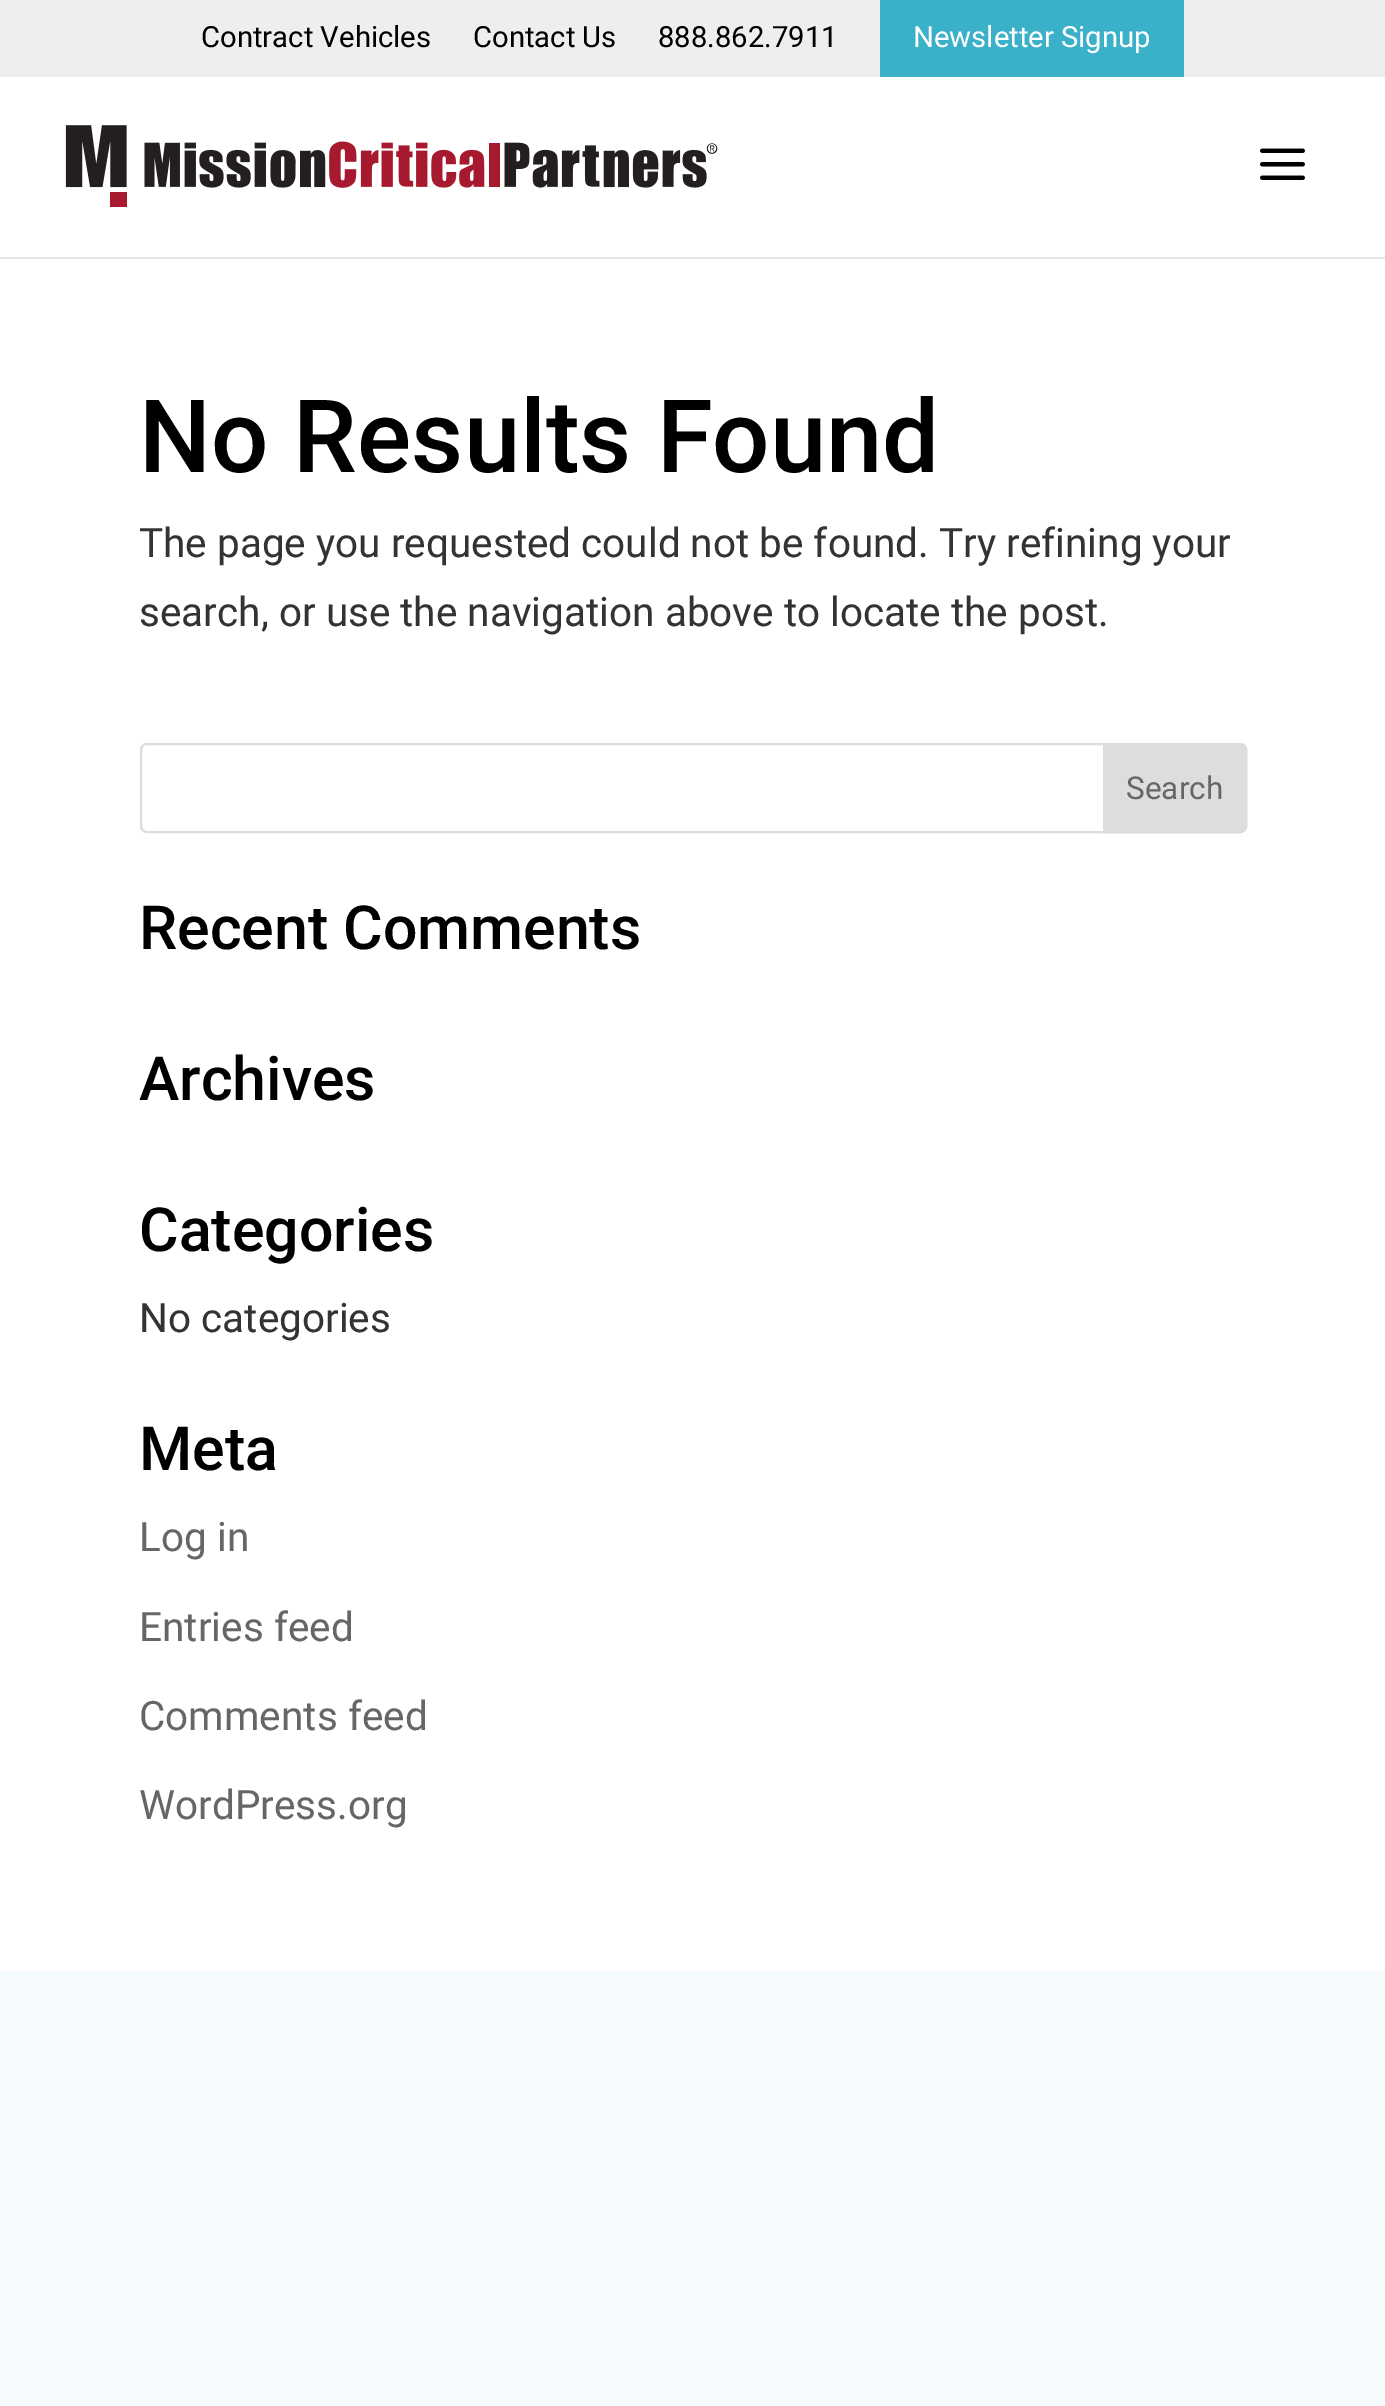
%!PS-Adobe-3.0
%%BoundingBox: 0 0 1385 2406
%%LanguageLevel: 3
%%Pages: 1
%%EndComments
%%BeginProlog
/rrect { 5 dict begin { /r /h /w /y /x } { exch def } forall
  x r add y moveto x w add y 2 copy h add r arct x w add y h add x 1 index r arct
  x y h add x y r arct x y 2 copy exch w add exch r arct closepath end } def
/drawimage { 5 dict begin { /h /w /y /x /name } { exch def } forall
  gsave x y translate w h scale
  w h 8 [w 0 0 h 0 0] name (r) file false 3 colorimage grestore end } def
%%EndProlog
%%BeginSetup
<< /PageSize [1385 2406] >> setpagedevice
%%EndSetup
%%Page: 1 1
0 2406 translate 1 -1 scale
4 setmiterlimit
0.961 0.984 0.988 setrgbcolor
0 0 1385 2406 rectfill
0.933 setgray
0 0 1385 77 rectfill
0.227 0.694 0.788 setrgbcolor
880 0 304 77 rectfill
1 setgray
0 77 1385 180 rectfill
(images/1.raw) 65 125 653 82 drawimage
(images/2.raw) 1260 148 45 32 drawimage
0 259 1385 1712 rectfill
0.902 setgray
0 257 1385 2 rectfill
0.867 setgray
2 setlinewidth
141 744 1105 88 6 rrect stroke
newpath 1104 744 moveto 1240 744 lineto 1243.5 744 1246 746.5 1246 750 curveto 1246 826 lineto 1246 829.5 1243.5 832 1240 832 curveto 1104 832 lineto closepath gsave fill grestore
stroke
/Roboto-Regular [29.25 0 0 -29.25 0 0] selectfont
0 setgray
201 47 moveto (Contract Vehicles) show
473 47 moveto (Contact Us) show
658 47 moveto (888.862.7911) show
1 setgray
913 47 moveto (Newsletter Signup) show
/Roboto-Medium [101.25 0 0 -101.25 0 0] selectfont
0 setgray
139 472 moveto (No Results Found) show
/Roboto-Regular [40.5 0 0 -40.5 0 0] selectfont
0.2 setgray
139 557 moveto (The page you requested could not be found. Try refining your) show
139 626 moveto (search, or use the navigation above to locate the post.) show
/Roboto-Regular [31.5 0 0 -31.5 0 0] selectfont
0.4 setgray
1126 799 moveto (Search) show
/Roboto-Medium [60.75 0 0 -60.75 0 0] selectfont
0 setgray
139 949 moveto (Recent Comments) show
139 1100 moveto (Archives) show
139 1251 moveto (Categories) show
/Roboto-Regular [40.5 0 0 -40.5 0 0] selectfont
0.2 setgray
139 1332 moveto (No categories) show
/Roboto-Medium [60.75 0 0 -60.75 0 0] selectfont
0 setgray
139 1470 moveto (Meta) show
/Roboto-Regular [40.5 0 0 -40.5 0 0] selectfont
0.4 setgray
139 1551 moveto (Log in) show
139 1641 moveto (Entries feed) show
139 1730 moveto (Comments feed) show
139 1819 moveto (WordPress.org) show
showpage
%%EOF
